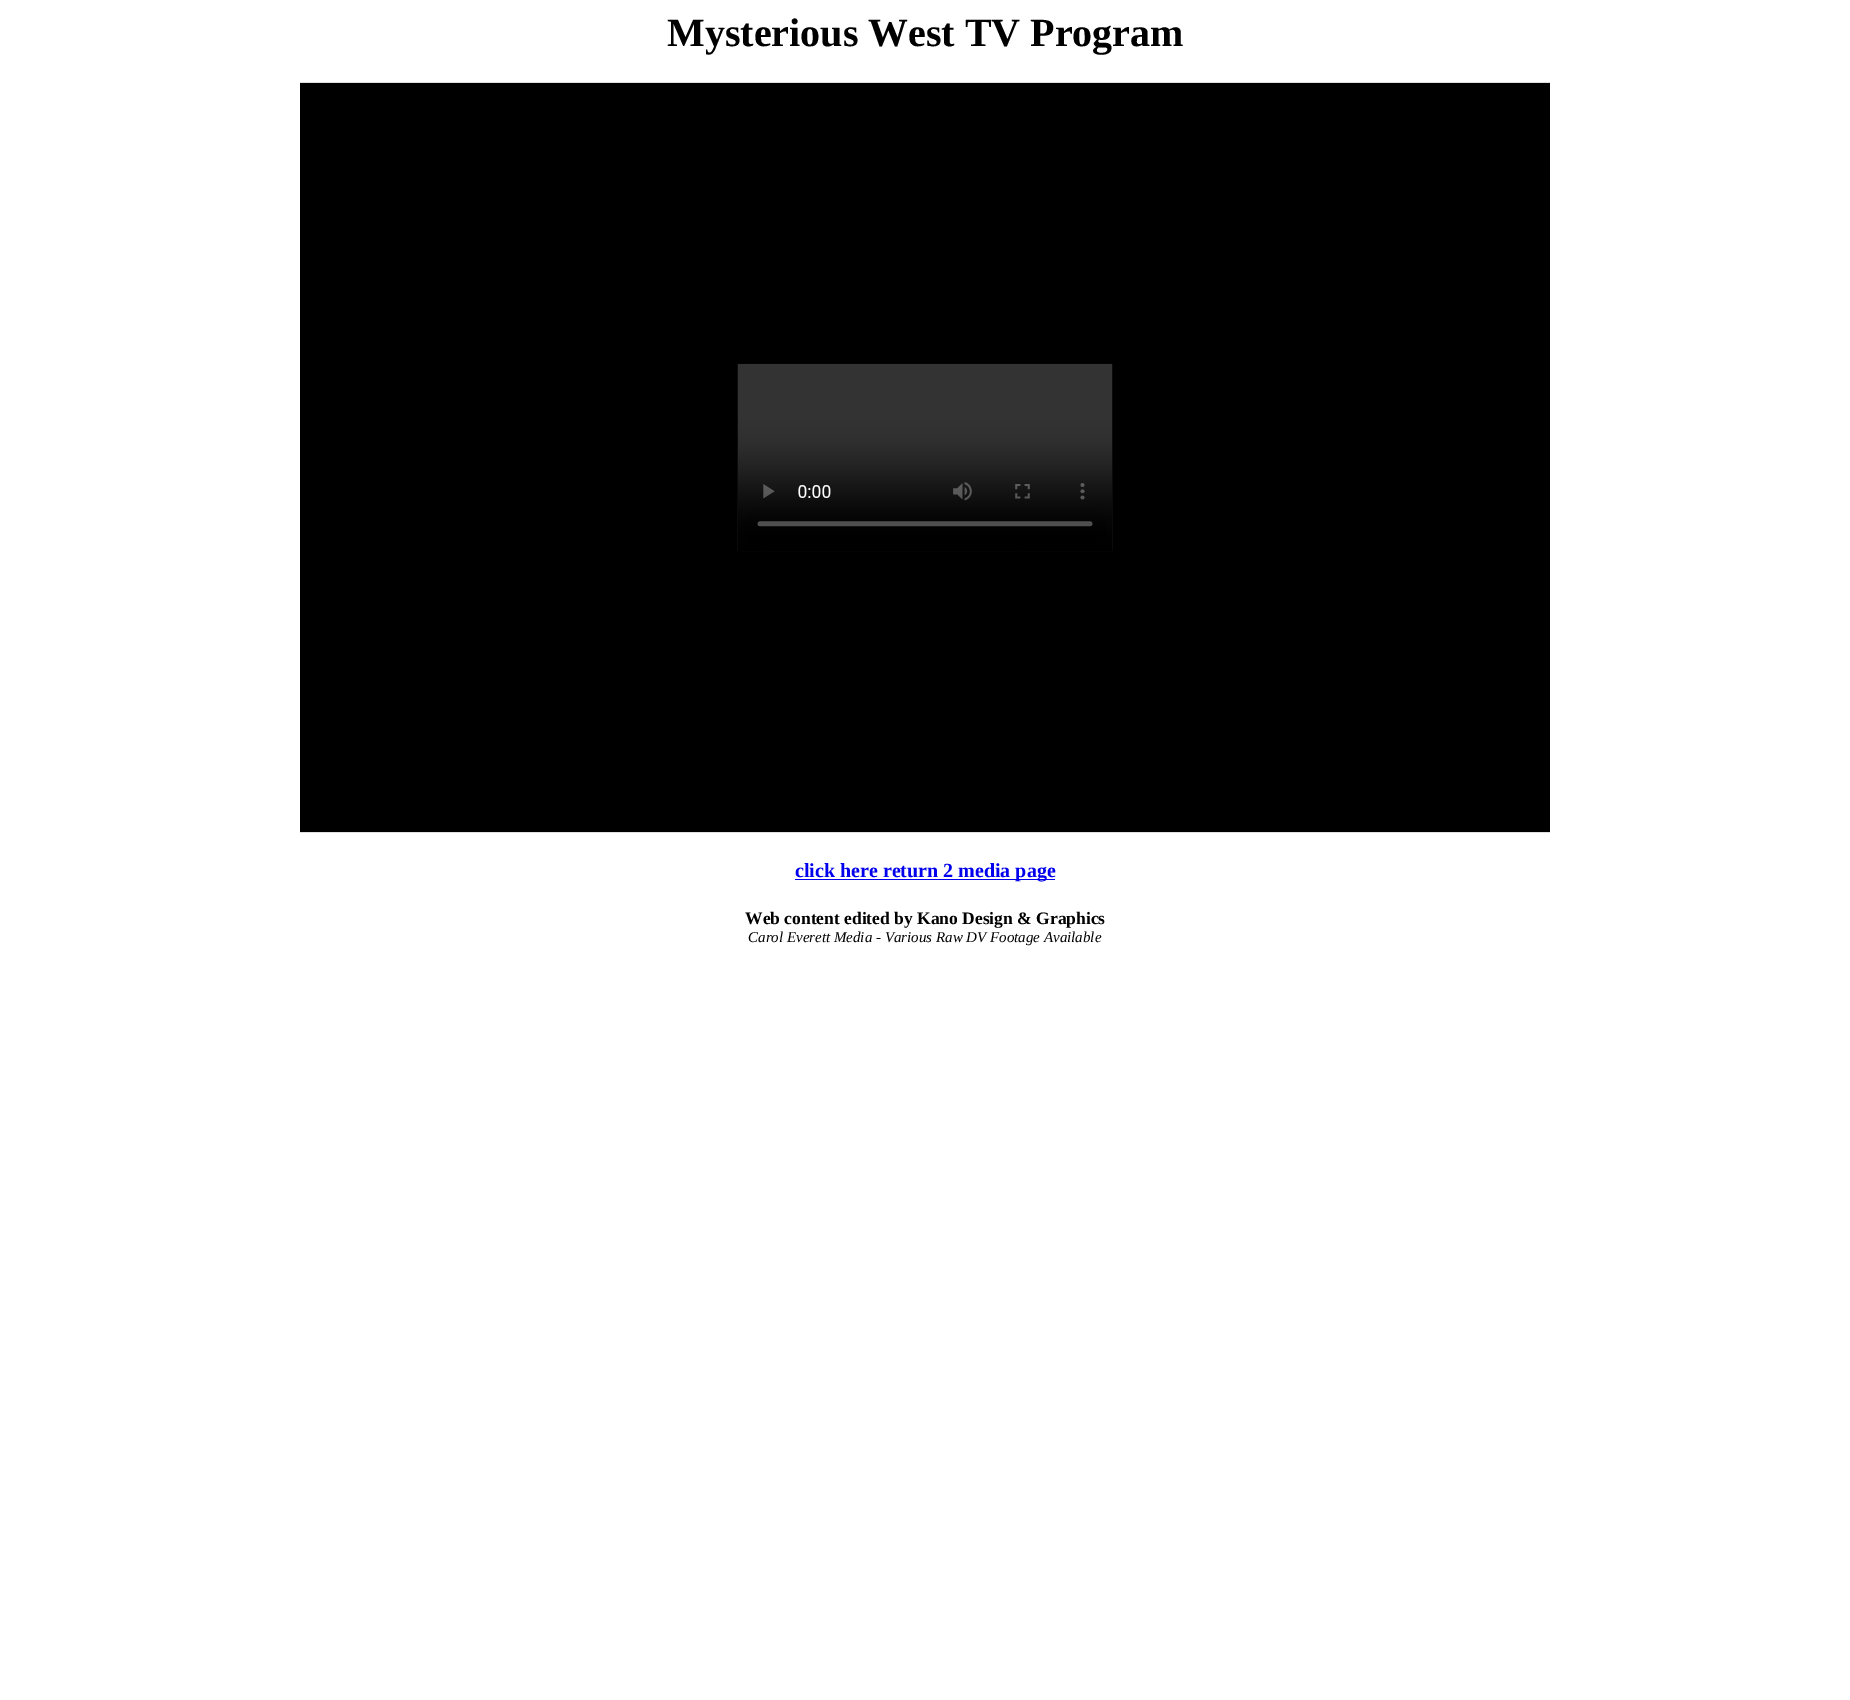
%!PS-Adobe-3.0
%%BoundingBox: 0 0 1850 1700
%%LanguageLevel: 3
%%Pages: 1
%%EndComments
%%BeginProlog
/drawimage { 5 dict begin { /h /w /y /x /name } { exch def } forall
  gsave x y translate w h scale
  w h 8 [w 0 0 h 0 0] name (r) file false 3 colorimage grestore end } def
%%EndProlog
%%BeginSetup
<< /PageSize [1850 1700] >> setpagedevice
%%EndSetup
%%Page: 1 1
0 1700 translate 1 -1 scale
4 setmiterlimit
1 setgray
0 0 1850 1700 rectfill
(images/1.raw) 300 82 1250 751 drawimage
0 0 0.933 setrgbcolor
795 879 260 1 rectfill
/LiberationSerif-Bold [40 0 0 -40 0 0] selectfont
0 setgray
667 46 moveto (Mysterious West TV Program) show
/LiberationSerif-Bold [20 0 0 -20 0 0] selectfont
0 0 0.933 setrgbcolor
795 877 moveto (click here return 2 media page) show
/LiberationSerif-Bold [17.5 0 0 -17.5 0 0] selectfont
0 setgray
745 924 moveto (Web content edited by Kano Design & Graphics) show
/LiberationSerif-Italic [15 0 0 -15 0 0] selectfont
748 942 moveto (Carol Everett Media - Various Raw DV Footage Available) show
showpage
%%EOF
